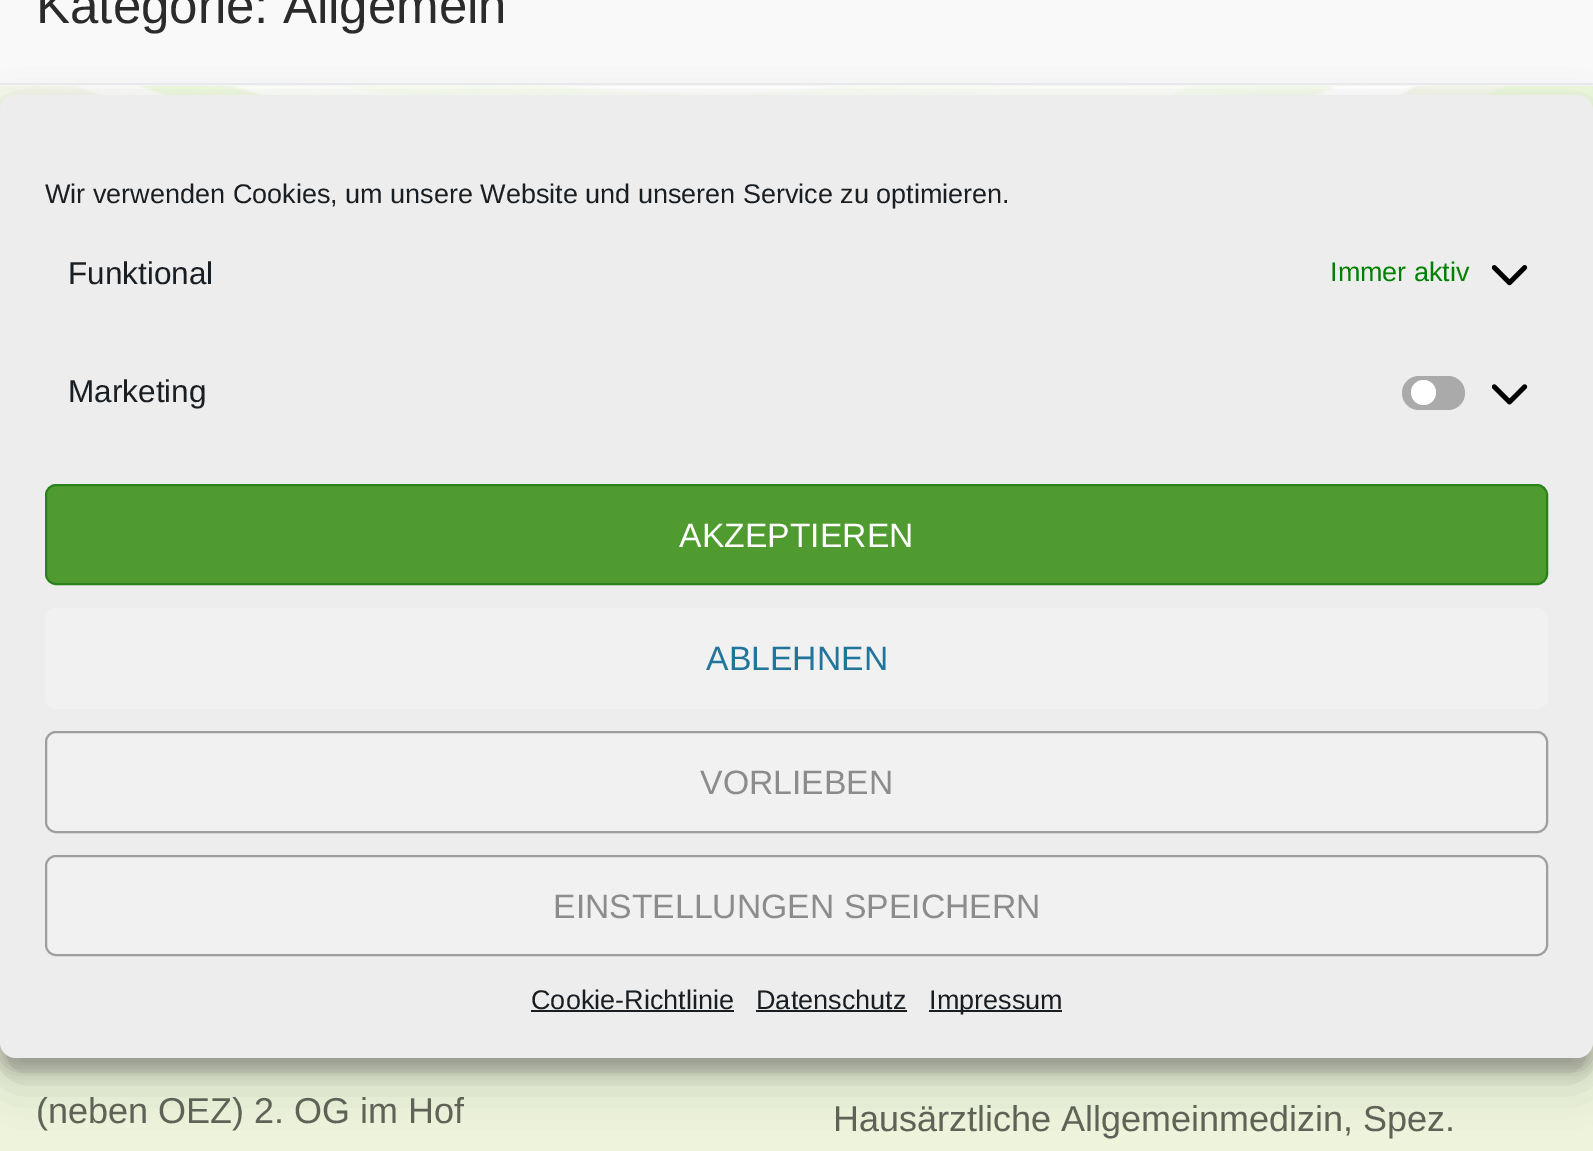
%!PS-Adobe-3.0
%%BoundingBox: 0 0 1593 1151
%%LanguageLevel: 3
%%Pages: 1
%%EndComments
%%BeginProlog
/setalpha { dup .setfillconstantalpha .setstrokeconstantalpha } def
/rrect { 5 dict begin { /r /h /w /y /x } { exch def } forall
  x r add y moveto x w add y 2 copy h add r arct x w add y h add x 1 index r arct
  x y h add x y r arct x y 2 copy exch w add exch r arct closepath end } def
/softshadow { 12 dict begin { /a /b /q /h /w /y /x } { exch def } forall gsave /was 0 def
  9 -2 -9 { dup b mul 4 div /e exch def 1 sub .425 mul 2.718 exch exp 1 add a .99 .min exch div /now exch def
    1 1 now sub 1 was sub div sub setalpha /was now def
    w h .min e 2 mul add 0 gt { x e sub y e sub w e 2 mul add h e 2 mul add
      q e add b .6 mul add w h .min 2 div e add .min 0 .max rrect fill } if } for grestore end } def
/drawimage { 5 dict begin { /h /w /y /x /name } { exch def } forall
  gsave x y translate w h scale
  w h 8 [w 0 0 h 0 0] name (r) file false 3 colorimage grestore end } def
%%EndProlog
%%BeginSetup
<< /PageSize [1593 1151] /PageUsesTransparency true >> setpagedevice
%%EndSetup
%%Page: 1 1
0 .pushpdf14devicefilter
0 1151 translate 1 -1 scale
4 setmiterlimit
1 setgray
0 0 1593 1151 rectfill
(images/1.raw) 0 86 1593 25 drawimage
0.976 setgray
0 0 1593 86 rectfill
0.918 0.925 0.933 setrgbcolor
0 83 1593 2 rectfill
0.54 setalpha
1 setgray
0 86 1593 25 rectfill
0.19 setalpha
0.631 0.776 0.247 setrgbcolor
0 1042 1593 109 rectfill
1 setalpha
0 setgray
0 108 1593 963 16 7 0.23 softshadow
0 117 1593 963 16 22.5 0.19 softshadow
0.929 setgray
0 95 1593 963 16 rrect fill
(images/2.raw) 1492 265 36 21 drawimage
0.667 setgray
1402 376 63 34 17 rrect fill
1 setgray
newpath 1423.5 392.5 12.5 0 360 arc closepath fill
(images/3.raw) 1492 384 36 21 drawimage
0.314 0.608 0.188 setrgbcolor
46 485 1501 99 10 rrect gsave fill grestore
0.165 0.51 0.106 setrgbcolor
2 setlinewidth
stroke
0.945 setgray
45 608 1503 101 11 rrect fill
46 732 1501 100 10 rrect gsave fill grestore
0.62 setgray
stroke
0.945 setgray
46 856 1501 99 10 rrect gsave fill grestore
0.62 setgray
stroke
0.098 0.118 0.137 setrgbcolor
531 1010 203 2 rectfill
756 1010 151 2 rectfill
929 1010 133 2 rectfill
/LiberationSans-Regular [51 0 0 -51 0 0] selectfont
0.169 setgray
36 23 moveto (Kategorie: Allgemein) show
/LiberationSans-Regular [36 0 0 -36 0 0] selectfont
0.373 0.384 0.341 setrgbcolor
36 1123 moveto (\(neben OEZ\) 2. OG im Hof) show
833 1131 moveto (Hausärztliche Allgemeinmedizin, Spez.) show
/LiberationSans-Regular [27 0 0 -27 0 0] selectfont
0.098 0.118 0.137 setrgbcolor
45 203 moveto (Wir verwenden Cookies, um unsere Website und unseren Service zu optimieren.) show
/LiberationSans-Regular [31.5 0 0 -31.5 0 0] selectfont
68 284 moveto (Funktional) show
/LiberationSans-Regular [27 0 0 -27 0 0] selectfont
0 0.502 0 setrgbcolor
1330 281 moveto (Immer aktiv) show
/LiberationSans-Regular [31.5 0 0 -31.5 0 0] selectfont
0.098 0.118 0.137 setrgbcolor
68 402 moveto (Marketing) show
/LiberationSans-Regular [33.75 0 0 -33.75 0 0] selectfont
1 setgray
679 547 moveto (AKZEPTIEREN) show
0.129 0.459 0.608 setrgbcolor
706 670 moveto (ABLEHNEN) show
0.549 setgray
700 794 moveto (VORLIEBEN) show
553 918 moveto (EINSTELLUNGEN SPEICHERN) show
/LiberationSans-Regular [27 0 0 -27 0 0] selectfont
0.098 0.118 0.137 setrgbcolor
531 1009 moveto (Cookie-Richtlinie) show
756 1009 moveto (Datenschutz) show
929 1009 moveto (Impressum) show
.poppdf14devicefilter showpage
%%EOF
